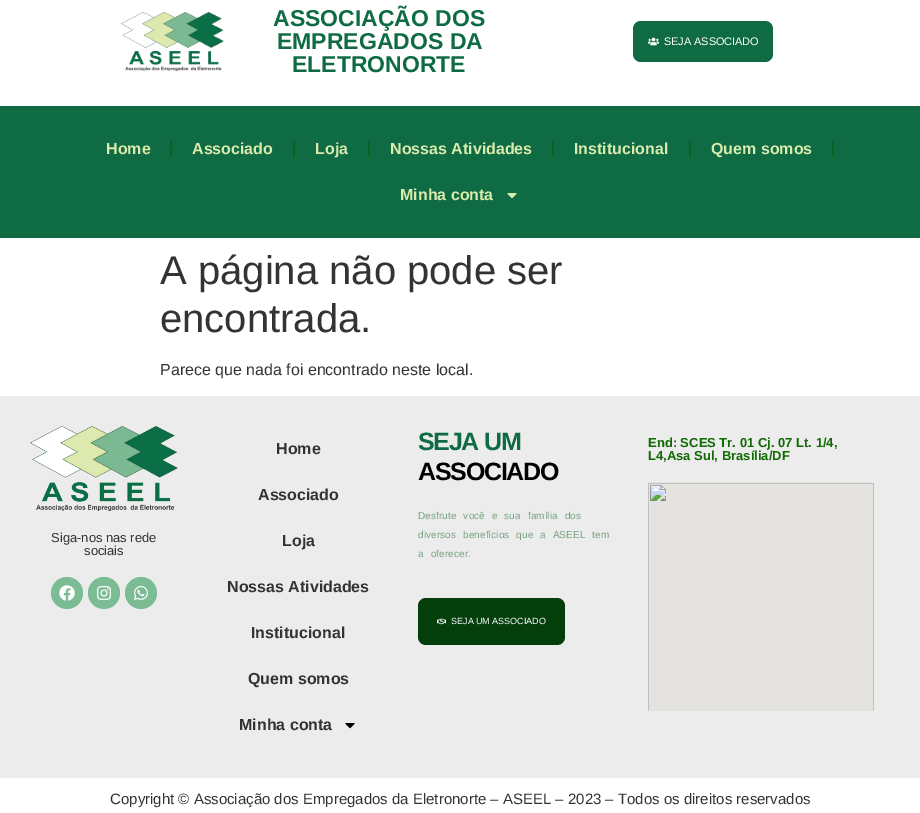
%!PS-Adobe-3.0
%%BoundingBox: 0 0 920 813
%%LanguageLevel: 3
%%Pages: 1
%%EndComments
%%BeginProlog
/rrect { 5 dict begin { /r /h /w /y /x } { exch def } forall
  x r add y moveto x w add y 2 copy h add r arct x w add y h add x 1 index r arct
  x y h add x y r arct x y 2 copy exch w add exch r arct closepath end } def
/drawimage { 5 dict begin { /h /w /y /x /name } { exch def } forall
  gsave x y translate w h scale
  w h 8 [w 0 0 h 0 0] name (r) file false 3 colorimage grestore end } def
%%EndProlog
%%BeginSetup
<< /PageSize [920 813] >> setpagedevice
%%EndSetup
%%Page: 1 1
0 813 translate 1 -1 scale
4 setmiterlimit
1 setgray
0 0 920 813 rectfill
(images/1.raw) 121 12 103 59 drawimage
0.059 0.42 0.267 setrgbcolor
633 21 140 41 8 rrect fill
(images/2.raw) 648 37 11 9 drawimage
0 106 920 132 rectfill
0.031 0.396 0.122 setrgbcolor
170 141 2 16 rectfill
293 141 2 16 rectfill
368 141 2 16 rectfill
552 141 2 16 rectfill
689 141 2 16 rectfill
832 141 2 16 rectfill
(images/3.raw) 507 193 10 6 drawimage
0.925 setgray
0 396 920 382 rectfill
(images/4.raw) 30 426 148 85 drawimage
0.486 0.737 0.58 setrgbcolor
newpath 67 593 16 0 360 arc closepath fill
(images/5.raw) 59 585 16 16 drawimage
newpath 104 593 16 0 360 arc closepath fill
(images/6.raw) 97 586 14 14 drawimage
newpath 141 593 16 0 360 arc closepath fill
(images/7.raw) 134 586 14 14 drawimage
(images/8.raw) 345 723 10 6 drawimage
0.012 0.243 0.043 setrgbcolor
418 598 147 47 8 rrect fill
(images/9.raw) 437 618 9 7 drawimage
(images/10.raw) 648 482 226 229 drawimage
/LiberationSans-Bold [23 0 0 -23 0 0] selectfont
0.059 0.42 0.267 setrgbcolor
273 26 moveto (ASSOCIAÇÃO DOS) show
277 49 moveto (EMPREGADOS DA) show
292 72 moveto (ELETRONORTE) show
/LiberationSans-Regular [11 0 0 -11 0 0] selectfont
1 setgray
664 45 moveto -0.1 0 (SEJA ASSOCIADO) ashow
/LiberationSans-Bold [16 0 0 -16 0 0] selectfont
0.859 0.922 0.682 setrgbcolor
106 154 moveto (Home) show
192 154 moveto (Associado) show
315 154 moveto (Loja) show
390 154 moveto (Nossas Atividades) show
574 154 moveto (Institucional) show
711 154 moveto (Quem somos) show
400 200 moveto (Minha conta) show
/LiberationSans-Regular [40 0 0 -40 0 0] selectfont
0.2 setgray
160 284 moveto (A página não pode ser) show
160 332 moveto (encontrada.) show
/LiberationSans-Regular [16 0 0 -16 0 0] selectfont
160 375 moveto (Parece que nada foi encontrado neste local.) show
/LiberationSans-Regular [13 0 0 -13 0 0] selectfont
51 542 moveto (Siga-nos nas rede) show
84 555 moveto (sociais) show
/LiberationSans-Bold [16 0 0 -16 0 0] selectfont
276 454 moveto (Home) show
258 500 moveto (Associado) show
282 546 moveto (Loja) show
227 592 moveto (Nossas Atividades) show
251 638 moveto (Institucional) show
248 684 moveto (Quem somos) show
239 730 moveto (Minha conta) show
/LiberationSans-Bold [25 0 0 -25 0 0] selectfont
0.059 0.42 0.267 setrgbcolor
418 450 moveto -1.25 0 (SEJA UM) ashow
0 setgray
418 480 moveto -1.25 0 (ASSOCIADO) ashow
/LiberationSans-Regular [10 0 0 -10 0 0] selectfont
0.463 0.635 0.502 setrgbcolor
418 519 moveto 4 0 32 0.1 0 (Desfrute você e sua família dos) awidthshow
418 538 moveto 4 0 32 0.1 0 (diversos benefícios que a ASEEL tem) awidthshow
418 557 moveto 4 0 32 0.1 0 (a oferecer.) awidthshow
/LiberationSans-Regular [9 0 0 -9 0 0] selectfont
1 setgray
451 624 moveto (SEJA UM ASSOCIADO) show
/LiberationSans-Bold [13 0 0 -13 0 0] selectfont
0.067 0.416 0.012 setrgbcolor
648 447 moveto (End: SCES Tr. 01 Cj. 07 Lt. 1/4,) show
648 460 moveto (L4,Asa Sul, Brasília/DF) show
/LiberationSans-Regular [15 0 0 -15 0 0] selectfont
0.2 setgray
110 804 moveto (Copyright © Associação dos Empregados da Eletronorte – ASEEL – 2023 – Todos os direitos reservados) show
showpage
%%EOF
